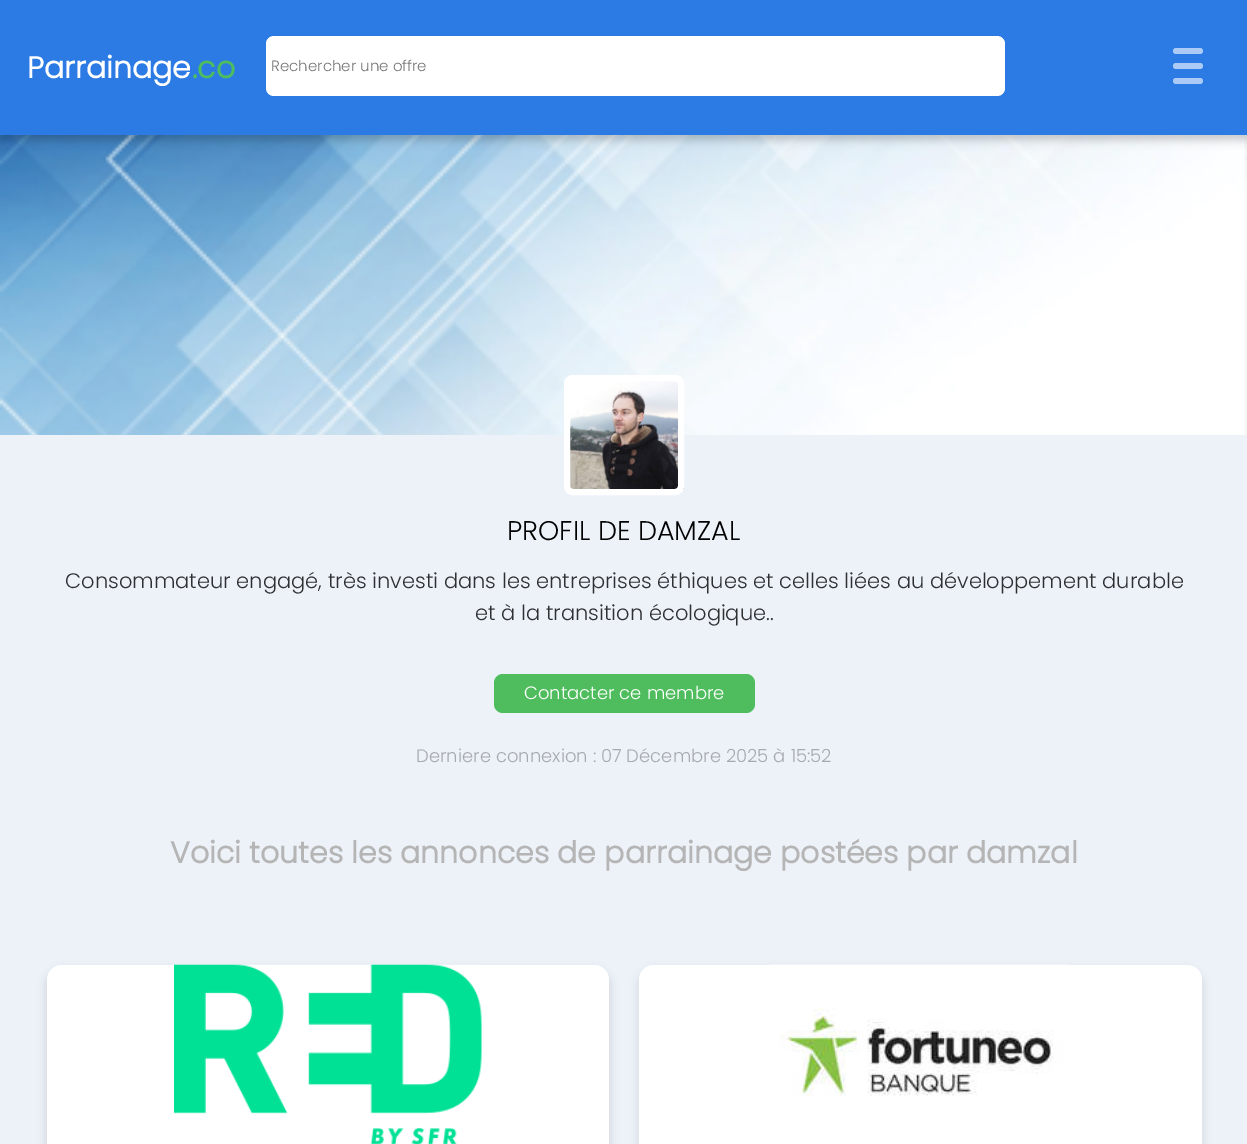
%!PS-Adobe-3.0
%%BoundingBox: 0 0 1247 1144
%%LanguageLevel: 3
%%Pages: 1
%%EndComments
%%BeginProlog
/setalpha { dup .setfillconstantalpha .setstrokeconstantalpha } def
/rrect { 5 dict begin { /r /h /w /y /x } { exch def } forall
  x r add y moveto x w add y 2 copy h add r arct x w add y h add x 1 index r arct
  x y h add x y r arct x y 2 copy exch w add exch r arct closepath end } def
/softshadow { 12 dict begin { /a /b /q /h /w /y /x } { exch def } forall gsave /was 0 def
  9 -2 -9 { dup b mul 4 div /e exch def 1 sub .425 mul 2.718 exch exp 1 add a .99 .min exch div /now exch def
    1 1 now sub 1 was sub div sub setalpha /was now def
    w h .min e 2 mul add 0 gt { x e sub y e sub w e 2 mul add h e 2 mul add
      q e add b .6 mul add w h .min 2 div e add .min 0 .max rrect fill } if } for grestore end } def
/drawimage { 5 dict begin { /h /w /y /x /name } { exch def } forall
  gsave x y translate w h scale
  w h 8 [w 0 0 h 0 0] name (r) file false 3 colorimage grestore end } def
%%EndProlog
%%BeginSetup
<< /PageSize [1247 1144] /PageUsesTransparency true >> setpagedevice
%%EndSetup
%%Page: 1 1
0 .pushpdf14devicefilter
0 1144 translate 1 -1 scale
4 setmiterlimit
0.929 0.949 0.976 setrgbcolor
0 0 1247 1144 rectfill
(images/1.raw) 0 135 1247 300 drawimage
0 setgray
0 5 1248 135 0 4.5 0.2 softshadow
0.173 0.482 0.898 setrgbcolor
0 0 1247 135 rectfill
1 setgray
266 36 739 60 8 rrect fill
0.671 0.792 0.961 setrgbcolor
1173 78 30 6 3 rrect fill
1173 63 30 6 3 rrect fill
1173 48 30 6 3 rrect fill
(images/2.raw) 570 381 114 108 drawimage
1 setgray
6 setlinewidth
567 378 114 114 6 rrect stroke
0.31 0.741 0.365 setrgbcolor
494 674 261 39 9 rrect fill
0 setgray
45 968 566 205 17 4 0.1 softshadow
1 setgray
newpath 62 965 moveto 594 965 lineto 602.5 965 609 971.5 609 980 curveto 609 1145 lineto 47 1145 lineto 47 980 lineto 47 971.5 53.5 965 62 965 curveto closepath fill
(images/3.raw) 174 964 308 180 drawimage
0 setgray
638 968 565 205 17 4 0.1 softshadow
1 setgray
newpath 654 965 moveto 1187 965 lineto 1195.5 965 1202 971.5 1202 980 curveto 1202 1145 lineto 639 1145 lineto 639 980 lineto 639 971.5 645.5 965 654 965 curveto closepath fill
(images/4.raw) 770 964 299 132 drawimage
/Poppins-Bold [30 0 0 -30 0 0] selectfont
27 78 moveto (Parrainage) show
0.31 0.741 0.365 setrgbcolor
192 78 moveto (.co) show
/Poppins-Light [15 0 0 -15 0 0] selectfont
0.459 setgray
271 71 moveto (Rechercher une offre) show
/Poppins-Light [27 0 0 -27 0 0] selectfont
0 setgray
507 540 moveto (PROFIL DE DAMZAL) show
/Poppins-Light [21 0 0 -21 0 0] selectfont
0.184 0.188 0.196 setrgbcolor
65 588 moveto (Consommateur engagé, très investi dans les entreprises éthiques et celles liées au développement durable) show
475 620 moveto (et à la transition écologique..) show
/Poppins-Light [18 0 0 -18 0 0] selectfont
1 setgray
524 699 moveto (Contacter ce membre) show
0.651 0.663 0.682 setrgbcolor
416 762 moveto (Derniere connexion : 07 Décembre 2025 à 15:52) show
/Poppins-Bold [30 0 0 -30 0 0] selectfont
0.71 setgray
170 863 moveto (Voici toutes les annonces de parrainage postées par damzal) show
.poppdf14devicefilter showpage
%%EOF
